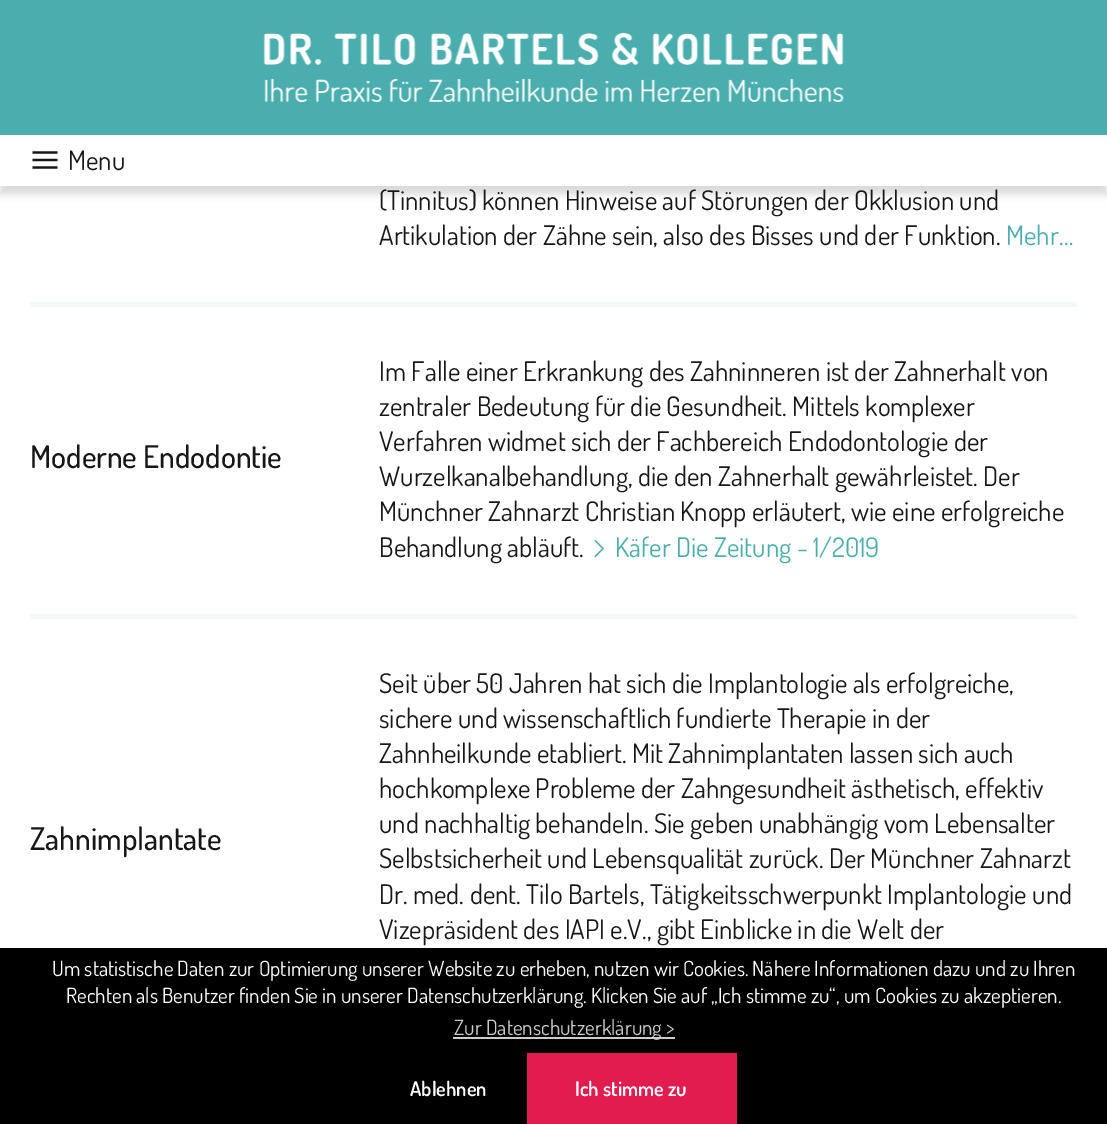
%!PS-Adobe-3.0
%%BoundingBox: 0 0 1107 1124
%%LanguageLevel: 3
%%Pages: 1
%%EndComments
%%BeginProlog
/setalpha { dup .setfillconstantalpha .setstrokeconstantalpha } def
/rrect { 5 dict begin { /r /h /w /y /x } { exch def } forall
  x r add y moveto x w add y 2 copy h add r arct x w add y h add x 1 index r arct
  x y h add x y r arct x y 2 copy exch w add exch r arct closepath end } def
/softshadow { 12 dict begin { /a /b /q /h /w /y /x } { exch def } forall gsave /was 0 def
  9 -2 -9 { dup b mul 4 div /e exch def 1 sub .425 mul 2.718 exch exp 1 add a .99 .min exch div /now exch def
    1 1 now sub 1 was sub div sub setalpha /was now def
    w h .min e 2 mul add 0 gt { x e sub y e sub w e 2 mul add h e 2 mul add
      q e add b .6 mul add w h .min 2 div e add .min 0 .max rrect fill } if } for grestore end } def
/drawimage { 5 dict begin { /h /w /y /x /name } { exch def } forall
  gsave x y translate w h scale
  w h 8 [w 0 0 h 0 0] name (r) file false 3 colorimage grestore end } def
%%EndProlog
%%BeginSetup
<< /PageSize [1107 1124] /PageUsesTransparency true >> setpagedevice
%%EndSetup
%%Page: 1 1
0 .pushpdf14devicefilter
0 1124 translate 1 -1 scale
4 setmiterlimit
1 setgray
0 0 1107 1124 rectfill
0.294 0.682 0.682 setrgbcolor
0 0 1107 135 rectfill
(images/1.raw) 263 33 581 69 drawimage
0 setgray
0 143 1107 51 0 4 0.15 softshadow
1 setgray
0 137 1107 49 rectfill
(images/2.raw) 32 151 26 18 drawimage
0.949 0.976 0.976 setrgbcolor
30 302 1047 5 rectfill
30 614 1047 5 rectfill
(images/3.raw) 594 539 10 19 drawimage
0 setgray
0 948 1107 176 rectfill
0.8 setgray
453 1037 222 2 rectfill
0.89 0.11 0.31 setrgbcolor
527 1053 210 71 rectfill
/Dosis-Regular [27 0 0 -27 0 0] selectfont
0.09 setgray
68 170 moveto (Menu) show
379 210 moveto (\(Tinnitus\) können Hinweise auf Störungen der Okklusion und) show
379 245 moveto (Artikulation der Zähne sein, also des Bisses und der Funktion.) show
0.294 0.682 0.682 setrgbcolor
1006 245 moveto (Mehr…) show
/Dosis-Medium [31.25 0 0 -31.25 0 0] selectfont
0.09 setgray
30 468 moveto (Moderne Endodontie) show
/Dosis-Regular [27 0 0 -27 0 0] selectfont
379 381 moveto (Im Falle einer Erkrankung des Zahninneren ist der Zahnerhalt von) show
379 416 moveto (zentraler Bedeutung für die Gesundheit. Mittels komplexer) show
379 451 moveto (Verfahren widmet sich der Fachbereich Endodontologie der) show
379 486 moveto (Wurzelkanalbehandlung, die den Zahnerhalt gewährleistet. Der) show
379 521 moveto (Münchner Zahnarzt Christian Knopp erläutert, wie eine erfolgreiche) show
379 557 moveto (Behandlung abläuft.) show
0.294 0.682 0.682 setrgbcolor
615 557 moveto (Käfer Die Zeitung - 1/2019) show
/Dosis-Medium [31.25 0 0 -31.25 0 0] selectfont
0.09 setgray
30 850 moveto (Zahnimplantate) show
/Dosis-Regular [27 0 0 -27 0 0] selectfont
379 693 moveto (Seit über 50 Jahren hat sich die Implantologie als erfolgreiche,) show
379 728 moveto (sichere und wissenschaftlich fundierte Therapie in der) show
379 763 moveto (Zahnheilkunde etabliert. Mit Zahnimplantaten lassen sich auch) show
379 798 moveto (hochkomplexe Probleme der Zahngesundheit ästhetisch, effektiv) show
379 833 moveto (und nachhaltig behandeln. Sie geben unabhängig vom Lebensalter) show
379 868 moveto (Selbstsicherheit und Lebensqualität zurück. Der Münchner Zahnarzt) show
379 904 moveto (Dr. med. dent. Tilo Bartels, Tätigkeitsschwerpunkt Implantologie und) show
379 939 moveto (Vizepräsident des IAPI e.V., gibt Einblicke in die Welt der) show
/Dosis-Regular [21 0 0 -21 0 0] selectfont
1 setgray
52 976 moveto (Um statistische Daten zur Optimierung unserer Website zu erheben, nutzen wir Cookies. Nähere Informationen dazu und zu Ihren) show
66 1003 moveto (Rechten als Benutzer finden Sie in unserer Datenschutzerklärung. Klicken Sie auf „Ich stimme zu“, um Cookies zu akzeptieren.) show
0.8 setgray
454 1035 moveto (Zur Datenschutzerklärung >) show
/Dosis-SemiBold [20.25 0 0 -20.25 0 0] selectfont
1 setgray
410 1096 moveto (Ablehnen) show
575 1096 moveto (Ich stimme zu) show
.poppdf14devicefilter showpage
%%EOF
